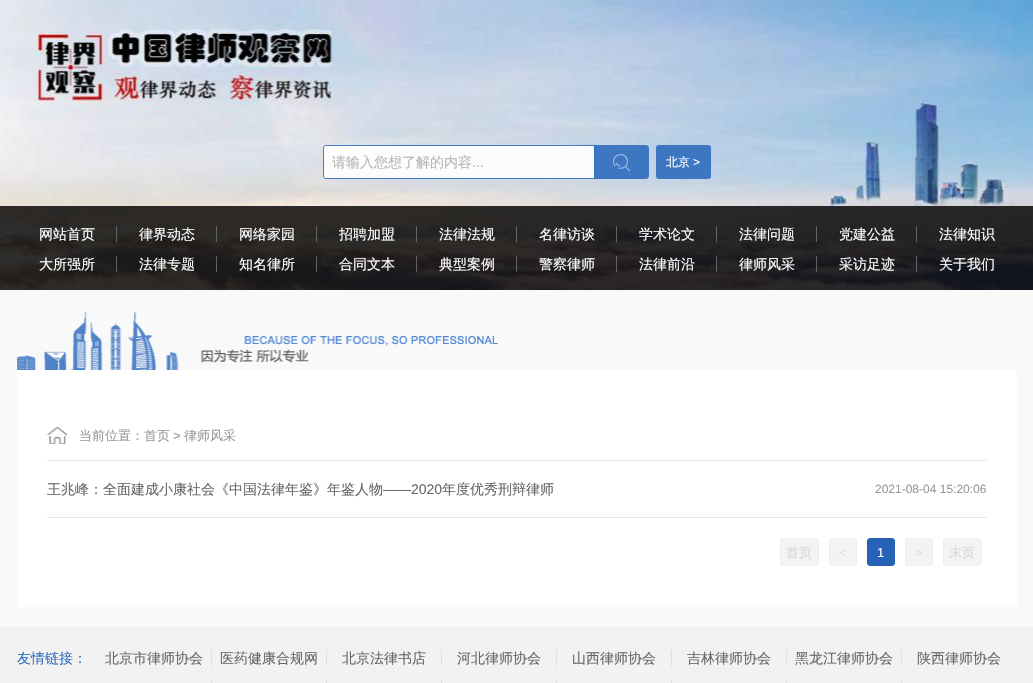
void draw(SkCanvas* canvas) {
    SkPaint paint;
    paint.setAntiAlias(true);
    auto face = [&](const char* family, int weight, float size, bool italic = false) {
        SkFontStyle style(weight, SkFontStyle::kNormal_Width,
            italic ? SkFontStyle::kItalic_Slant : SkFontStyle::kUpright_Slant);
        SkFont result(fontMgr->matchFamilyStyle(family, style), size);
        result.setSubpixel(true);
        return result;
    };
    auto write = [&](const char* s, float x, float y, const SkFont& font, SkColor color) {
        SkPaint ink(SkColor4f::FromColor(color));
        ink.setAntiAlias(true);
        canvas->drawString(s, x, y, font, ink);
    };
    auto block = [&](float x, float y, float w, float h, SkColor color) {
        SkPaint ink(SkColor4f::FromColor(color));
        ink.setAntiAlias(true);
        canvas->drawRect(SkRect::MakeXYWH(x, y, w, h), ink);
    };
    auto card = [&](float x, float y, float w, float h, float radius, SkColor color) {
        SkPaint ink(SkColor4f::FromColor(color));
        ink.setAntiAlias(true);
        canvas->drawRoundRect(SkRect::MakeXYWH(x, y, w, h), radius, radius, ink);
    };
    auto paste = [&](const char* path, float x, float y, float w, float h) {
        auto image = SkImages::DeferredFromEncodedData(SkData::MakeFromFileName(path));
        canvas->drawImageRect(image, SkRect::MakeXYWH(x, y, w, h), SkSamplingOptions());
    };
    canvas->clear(SkColorSetRGB(249, 249, 249));
    paste("pic1.png", 0, 0, 1033, 290);
    paint.setColor(SkColorSetARGB(230, 255, 255, 255));
    canvas->drawPath(SkPathBuilder().moveTo(326, 145).lineTo(595, 145).lineTo(595, 179).lineTo(326, 179).cubicTo(324.5f, 179, 323, 177.5f, 323, 176).lineTo(323, 148).cubicTo(323, 146.5f, 324.5f, 145, 326, 145).close().detach(), paint);
    paint.setStyle(SkPaint::kStroke_Style);
    paint.setStrokeWidth(1);
    paint.setColor(SkColorSetARGB(230, 47, 107, 189));
    canvas->drawPath(SkPathBuilder().moveTo(326, 145.5f).lineTo(594.5f, 145.5f).lineTo(594.5f, 178.5f).lineTo(326, 178.5f).cubicTo(324.5f, 178.5f, 323.5f, 177.5f, 323.5f, 176).lineTo(323.5f, 148).cubicTo(323.5f, 146.5f, 324.5f, 145.5f, 326, 145.5f).close().detach(), paint);
    auto kFont1 = face("WenQuanYi Zen Hei", 500, 14);
    write("请输入您想了解的内容", 332, 167, kFont1, SkColorSetRGB(183, 182, 181));
    auto kFont2 = face("Liberation Sans", 400, 14);
    write("...", 472, 167, kFont2, SkColorSetRGB(183, 182, 181));
    paint.setStyle(SkPaint::kFill_Style);
    canvas->drawPath(SkPathBuilder().moveTo(594, 145).lineTo(646, 145).cubicTo(647.5f, 145, 649, 146.5f, 649, 148).lineTo(649, 176).cubicTo(649, 177.5f, 647.5f, 179, 646, 179).lineTo(594, 179).close().detach(), paint);
    paste("pic2.png", 613, 154, 17, 17);
    card(656, 145, 55, 34, 3, SkColorSetARGB(230, 47, 107, 189));
    auto kFont3 = face("WenQuanYi Zen Hei", 500, 12);
    write("北京", 666, 166, kFont3, SK_ColorWHITE);
    auto kFont4 = face("Liberation Sans", 400, 12);
    write(">", 693, 166, kFont4, SK_ColorWHITE);
    block(0, 206, 1033, 84, SkColorSetARGB(209, 0, 0, 0));
    write("网站首页", 39, 239, kFont1, SK_ColorWHITE);
    block(116, 226, 1, 16, SkColorSetRGB(99, 99, 99));
    write("律界动态", 139, 239, kFont1, SK_ColorWHITE);
    block(216, 226, 1, 16, SkColorSetRGB(99, 99, 99));
    write("网络家园", 239, 239, kFont1, SK_ColorWHITE);
    block(316, 226, 1, 16, SkColorSetRGB(99, 99, 99));
    write("招聘加盟", 339, 239, kFont1, SK_ColorWHITE);
    block(416, 226, 1, 16, SkColorSetRGB(99, 99, 99));
    write("法律法规", 439, 239, kFont1, SK_ColorWHITE);
    block(516, 226, 1, 16, SkColorSetRGB(99, 99, 99));
    write("名律访谈", 539, 239, kFont1, SK_ColorWHITE);
    block(616, 226, 1, 16, SkColorSetRGB(99, 99, 99));
    write("学术论文", 639, 239, kFont1, SK_ColorWHITE);
    block(716, 226, 1, 16, SkColorSetRGB(99, 99, 99));
    write("法律问题", 739, 239, kFont1, SK_ColorWHITE);
    block(816, 226, 1, 16, SkColorSetRGB(99, 99, 99));
    write("党建公益", 839, 239, kFont1, SK_ColorWHITE);
    block(916, 226, 1, 16, SkColorSetRGB(99, 99, 99));
    write("法律知识", 939, 239, kFont1, SK_ColorWHITE);
    write("大所强所", 39, 269, kFont1, SK_ColorWHITE);
    block(116, 256, 1, 16, SkColorSetRGB(99, 99, 99));
    write("法律专题", 139, 269, kFont1, SK_ColorWHITE);
    block(216, 256, 1, 16, SkColorSetRGB(99, 99, 99));
    write("知名律所", 239, 269, kFont1, SK_ColorWHITE);
    block(316, 256, 1, 16, SkColorSetRGB(99, 99, 99));
    write("合同文本", 339, 269, kFont1, SK_ColorWHITE);
    block(416, 256, 1, 16, SkColorSetRGB(99, 99, 99));
    write("典型案例", 439, 269, kFont1, SK_ColorWHITE);
    block(516, 256, 1, 16, SkColorSetRGB(99, 99, 99));
    write("警察律师", 539, 269, kFont1, SK_ColorWHITE);
    block(616, 256, 1, 16, SkColorSetRGB(99, 99, 99));
    write("法律前沿", 639, 269, kFont1, SK_ColorWHITE);
    block(716, 256, 1, 16, SkColorSetRGB(99, 99, 99));
    write("律师风采", 739, 269, kFont1, SK_ColorWHITE);
    block(816, 256, 1, 16, SkColorSetRGB(99, 99, 99));
    write("采访足迹", 839, 269, kFont1, SK_ColorWHITE);
    block(916, 256, 1, 16, SkColorSetRGB(99, 99, 99));
    write("关于我们", 939, 269, kFont1, SK_ColorWHITE);
    paste("pic3.png", 17, 311, 481, 59);
    block(17, 370, 1000, 237, SK_ColorWHITE);
    paste("pic4.png", 47, 427, 20, 17);
    block(47, 460, 940, 1, SkColorSetRGB(230, 230, 230));
    auto kFont5 = face("WenQuanYi Zen Hei", 500, 13);
    write("当前位置：首页", 79, 440, kFont5, SkColorSetRGB(153, 153, 153));
    auto kFont6 = face("Liberation Sans", 400, 13);
    write(">", 173, 440, kFont6, SkColorSetRGB(153, 153, 153));
    write("律师风采", 184, 440, kFont5, SkColorSetRGB(153, 153, 153));
    write("王兆峰：全面建成小康社会《中国法律年鉴》年鉴人物", 47, 494, kFont1, SkColorSetRGB(102, 102, 102));
    write("——2020", 383, 494, kFont2, SkColorSetRGB(102, 102, 102));
    write("年度优秀刑辩律师", 442, 494, kFont1, SkColorSetRGB(102, 102, 102));
    write("2021-08-04 15:20:06", 875, 493, kFont4, SkColorSetRGB(153, 153, 153));
    block(47, 517, 940, 1, SkColorSetRGB(230, 230, 230));
    paint.setColor(SkColorSetRGB(243, 243, 243));
    canvas->drawRoundRect(SkRect::MakeXYWH(780.5f, 538.5f, 38, 27), 2.5f, 2.5f, paint);
    paint.setStyle(SkPaint::kStroke_Style);
    paint.setColor(SkColorSetRGB(238, 238, 238));
    canvas->drawRoundRect(SkRect::MakeXYWH(780.5f, 538.5f, 38, 27), 2.5f, 2.5f, paint);
    write("首页", 786, 557, kFont5, SkColorSetRGB(216, 216, 216));
    paint.setStyle(SkPaint::kFill_Style);
    paint.setColor(SkColorSetRGB(243, 243, 243));
    canvas->drawRoundRect(SkRect::MakeXYWH(829.5f, 538.5f, 27, 27), 2.5f, 2.5f, paint);
    paint.setStyle(SkPaint::kStroke_Style);
    paint.setColor(SkColorSetRGB(238, 238, 238));
    canvas->drawRoundRect(SkRect::MakeXYWH(829.5f, 538.5f, 27, 27), 2.5f, 2.5f, paint);
    auto kFont7 = face("Liberation Serif", 400, 13);
    write("<", 839, 557, kFont7, SkColorSetRGB(216, 216, 216));
    paint.setStyle(SkPaint::kFill_Style);
    paint.setColor(SkColorSetRGB(38, 98, 181));
    canvas->drawRoundRect(SkRect::MakeXYWH(867.5f, 538.5f, 27, 27), 2.5f, 2.5f, paint);
    paint.setStyle(SkPaint::kStroke_Style);
    canvas->drawRoundRect(SkRect::MakeXYWH(867.5f, 538.5f, 27, 27), 2.5f, 2.5f, paint);
    write("1", 877, 557, kFont6, SK_ColorWHITE);
    paint.setStyle(SkPaint::kFill_Style);
    paint.setColor(SkColorSetRGB(243, 243, 243));
    canvas->drawRoundRect(SkRect::MakeXYWH(905.5f, 538.5f, 27, 27), 2.5f, 2.5f, paint);
    paint.setStyle(SkPaint::kStroke_Style);
    paint.setColor(SkColorSetRGB(238, 238, 238));
    canvas->drawRoundRect(SkRect::MakeXYWH(905.5f, 538.5f, 27, 27), 2.5f, 2.5f, paint);
    write(">", 915, 557, kFont7, SkColorSetRGB(216, 216, 216));
    paint.setStyle(SkPaint::kFill_Style);
    paint.setColor(SkColorSetRGB(243, 243, 243));
    canvas->drawRoundRect(SkRect::MakeXYWH(943.5f, 538.5f, 38, 27), 2.5f, 2.5f, paint);
    paint.setStyle(SkPaint::kStroke_Style);
    paint.setColor(SkColorSetRGB(238, 238, 238));
    canvas->drawRoundRect(SkRect::MakeXYWH(943.5f, 538.5f, 38, 27), 2.5f, 2.5f, paint);
    write("末页", 949, 557, kFont5, SkColorSetRGB(216, 216, 216));
    block(0, 627, 1033, 56, SkColorSetRGB(242, 242, 242));
    write("友情链接：", 17, 663, kFont1, SkColorSetRGB(47, 107, 189));
    write("北京市律师协会", 105, 663, kFont1, SkColorSetRGB(102, 102, 102));
    block(211, 650, 1, 16, SkColorSetRGB(223, 223, 223));
    write("医药健康合规网", 220, 663, kFont1, SkColorSetRGB(102, 102, 102));
    block(326, 650, 1, 16, SkColorSetRGB(223, 223, 223));
    write("北京法律书店", 342, 663, kFont1, SkColorSetRGB(102, 102, 102));
    block(441, 650, 1, 16, SkColorSetRGB(223, 223, 223));
    write("河北律师协会", 457, 663, kFont1, SkColorSetRGB(102, 102, 102));
    block(556, 650, 1, 16, SkColorSetRGB(223, 223, 223));
    write("山西律师协会", 572, 663, kFont1, SkColorSetRGB(102, 102, 102));
    block(671, 650, 1, 16, SkColorSetRGB(223, 223, 223));
    write("吉林律师协会", 687, 663, kFont1, SkColorSetRGB(102, 102, 102));
    block(786, 650, 1, 16, SkColorSetRGB(223, 223, 223));
    write("黑龙江律师协会", 795, 663, kFont1, SkColorSetRGB(102, 102, 102));
    block(901, 650, 1, 16, SkColorSetRGB(223, 223, 223));
    write("陕西律师协会", 917, 663, kFont1, SkColorSetRGB(102, 102, 102));
    block(211, 680, 1, 3, SkColorSetRGB(223, 223, 223));
    block(326, 680, 1, 3, SkColorSetRGB(223, 223, 223));
    block(441, 680, 1, 3, SkColorSetRGB(223, 223, 223));
    block(556, 680, 1, 3, SkColorSetRGB(223, 223, 223));
    block(671, 680, 1, 3, SkColorSetRGB(223, 223, 223));
    block(786, 680, 1, 3, SkColorSetRGB(223, 223, 223));
    block(901, 680, 1, 3, SkColorSetRGB(223, 223, 223));
}
